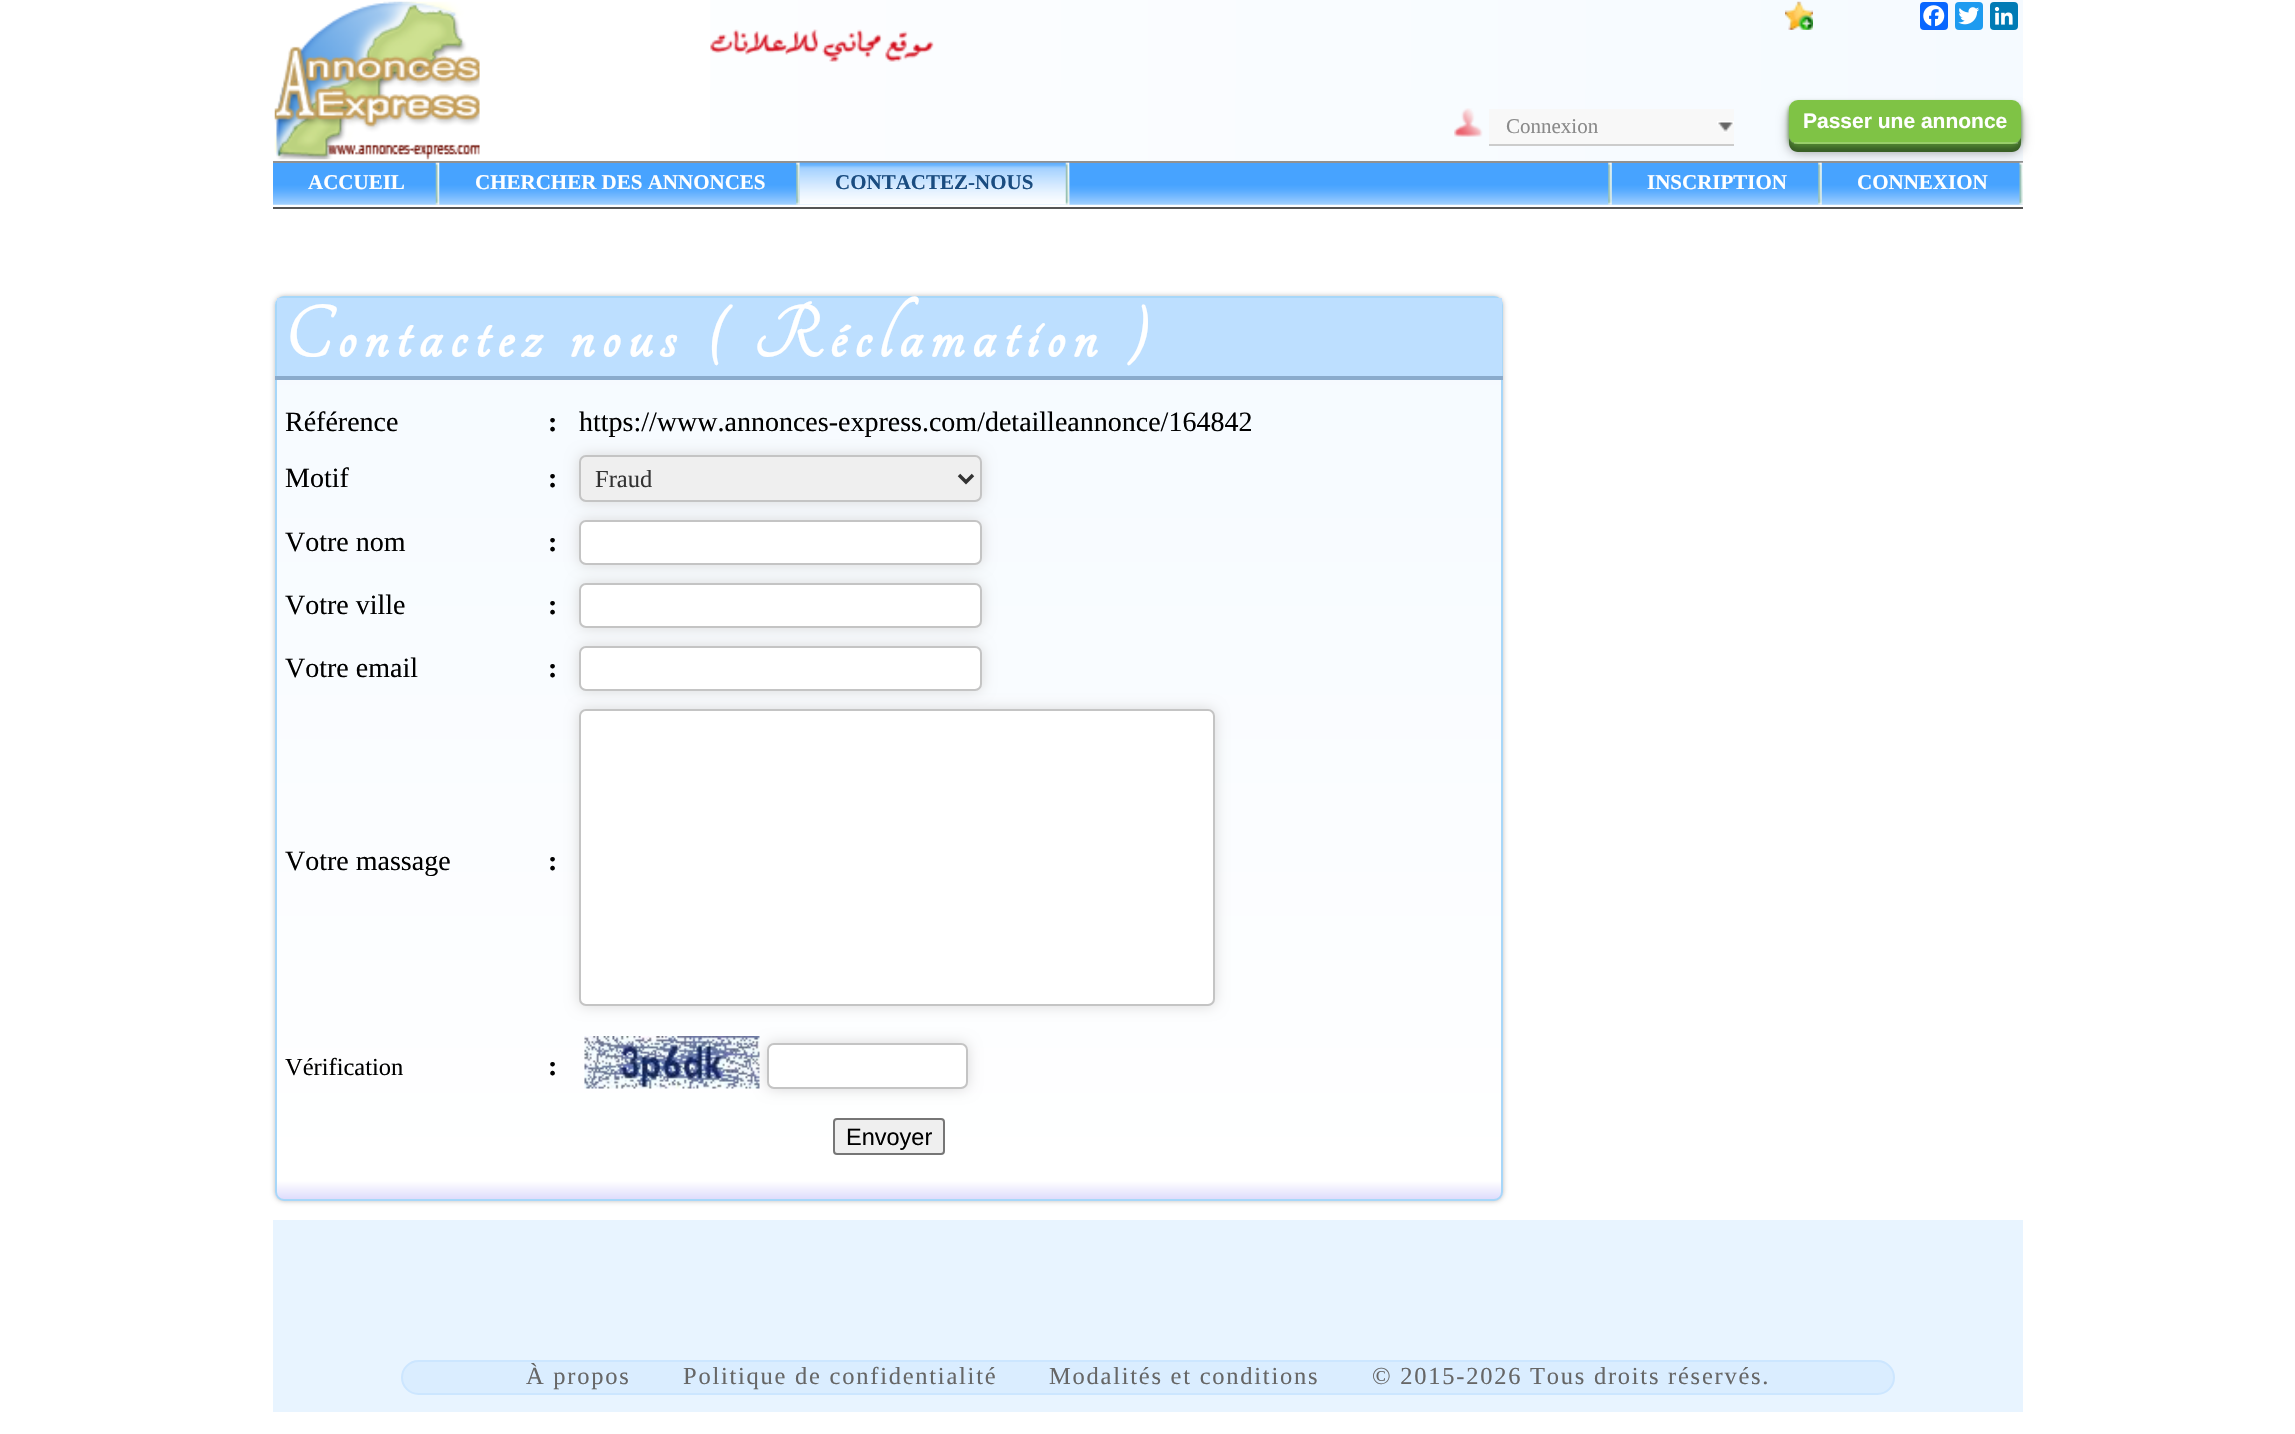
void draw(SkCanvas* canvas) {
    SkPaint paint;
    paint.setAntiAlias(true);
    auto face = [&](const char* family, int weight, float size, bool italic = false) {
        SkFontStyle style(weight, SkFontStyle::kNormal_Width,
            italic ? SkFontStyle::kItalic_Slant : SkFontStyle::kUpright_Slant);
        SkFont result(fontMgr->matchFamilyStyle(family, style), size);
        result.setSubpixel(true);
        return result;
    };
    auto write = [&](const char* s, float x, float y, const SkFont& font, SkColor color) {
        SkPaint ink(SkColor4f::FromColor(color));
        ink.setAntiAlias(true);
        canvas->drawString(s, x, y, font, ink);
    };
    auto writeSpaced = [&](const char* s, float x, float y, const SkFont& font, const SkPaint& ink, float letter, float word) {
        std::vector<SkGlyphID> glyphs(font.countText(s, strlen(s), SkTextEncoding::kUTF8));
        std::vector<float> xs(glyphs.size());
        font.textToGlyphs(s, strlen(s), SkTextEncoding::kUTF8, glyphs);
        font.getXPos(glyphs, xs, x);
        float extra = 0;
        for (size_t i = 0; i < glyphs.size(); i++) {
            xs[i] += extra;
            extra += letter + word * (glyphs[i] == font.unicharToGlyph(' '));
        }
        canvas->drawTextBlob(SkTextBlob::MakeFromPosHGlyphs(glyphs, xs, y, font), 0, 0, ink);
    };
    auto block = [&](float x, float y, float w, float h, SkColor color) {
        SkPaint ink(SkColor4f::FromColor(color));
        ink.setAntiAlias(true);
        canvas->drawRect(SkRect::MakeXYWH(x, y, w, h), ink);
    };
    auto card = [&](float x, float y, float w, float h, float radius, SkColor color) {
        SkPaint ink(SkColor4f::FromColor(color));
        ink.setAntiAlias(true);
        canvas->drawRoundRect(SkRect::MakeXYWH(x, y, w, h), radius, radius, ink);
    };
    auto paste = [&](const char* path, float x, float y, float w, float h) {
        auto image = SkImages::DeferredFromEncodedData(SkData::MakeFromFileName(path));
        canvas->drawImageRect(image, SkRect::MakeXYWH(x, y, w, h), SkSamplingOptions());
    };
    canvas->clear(SK_ColorWHITE);
    {
        const SkColor colors[] = {SkColorSetRGB(245, 250, 255), SK_ColorWHITE};
        const float stops[] = {0, 1};
        const SkPoint ends[] = {{2023, 81}, {273, 80}};
        paint.setShader(SkGradientShader::MakeLinear(ends, colors, stops, 2, SkTileMode::kClamp));
        paint.setAlpha(255);
    }
    canvas->drawRect(SkRect::MakeXYWH(710, 0, 1313, 161), paint);
    paste("pic1.png", 274, 1, 206, 159);
    paste("pic2.png", 1785, 1, 28, 29);
    card(1920, 2, 28, 28, 4, SkColorSetRGB(8, 102, 255));
    paste("pic3.png", 1923, 5, 22, 22);
    card(1955, 2, 28, 28, 4, SkColorSetRGB(29, 155, 240));
    paste("pic4.png", 1958, 7, 22, 18);
    card(1990, 2, 28, 28, 4, SkColorSetRGB(0, 123, 181));
    paste("pic5.png", 1994, 7, 19, 18);
    paste("pic6.png", 710, 29, 224, 33);
    paste("pic7.png", 1454, 108, 29, 29);
    block(1489, 109, 245, 35, SkColorSetRGB(248, 248, 248));
    paste("pic8.png", 1717, 121, 17, 12);
    block(1489, 144, 245, 2, SkColorSetRGB(204, 204, 204));
    auto kFont1 = face("Liberation Serif", 400, 21);
    write("Connexion", 1506, 133, kFont1, SkColorSetRGB(138, 138, 138));
    paint.setShader(nullptr);
    paint.setColor(SkColorSetARGB(102, 0, 0, 0));
    paint.setMaskFilter(SkMaskFilter::MakeBlur(kNormal_SkBlurStyle, 6));
    canvas->drawRoundRect(SkRect::MakeXYWH(1789, 109, 232, 43), 9, 9, paint);
    paint.setMaskFilter(nullptr);
    paint.setColor(SkColorSetRGB(56, 94, 37));
    canvas->drawPath(SkPathBuilder().moveTo(1789, 138).lineTo(1789, 143).cubicTo(1789, 148, 1793, 152, 1798, 152).lineTo(2012, 152).cubicTo(2017, 152, 2021, 148, 2021, 143).lineTo(2021, 137).cubicTo(2020, 141, 2017, 144, 2012, 144).lineTo(1797, 144).cubicTo(1793, 144, 1790, 141, 1789, 138).close().detach(), paint);
    paint.setColor(SkColorSetRGB(80, 133, 48));
    paint.setMaskFilter(SkMaskFilter::MakeBlur(kNormal_SkBlurStyle, 2));
    canvas->drawRoundRect(SkRect::MakeXYWH(1789, 103, 232, 44), 9, 9, paint);
    paint.setMaskFilter(nullptr);
    card(1789, 100, 232, 44, 9, SkColorSetRGB(127, 195, 69));
    block(1794, 142, 224, 2, SkColorSetARGB(51, 255, 255, 255));
    auto kFont2 = face("Liberation Sans", 700, 21);
    write("Passer une annonce", 1803, 128, kFont2, SK_ColorWHITE);
    paste("pic9.png", 273, 163, 1750, 42);
    block(273, 161, 1750, 2, SkColorSetRGB(145, 145, 145));
    block(273, 207, 1750, 2, SkColorSetRGB(85, 85, 85));
    paste("pic10.png", 435, 162, 5, 43);
    auto kFont3 = face("Liberation Serif", 700, 21);
    write("ACCUEIL", 308, 189, kFont3, SK_ColorWHITE);
    paste("pic11.png", 796, 162, 4, 43);
    write("CHERCHER DES ANNONCES", 475, 189, kFont3, SK_ColorWHITE);
    paste("pic12.png", 799, 162, 271, 43);
    paste("pic13.png", 1065, 162, 5, 43);
    write("CONTACTEZ-NOUS", 835, 189, kFont3, SkColorSetRGB(26, 76, 128));
    paste("pic11.png", 1608, 162, 4, 43);
    paste("pic11.png", 1818, 162, 4, 43);
    write("INSCRIPTION", 1647, 189, kFont3, SK_ColorWHITE);
    paste("pic14.png", 2019, 162, 4, 43);
    write("CONNEXION", 1857, 189, kFont3, SK_ColorWHITE);
    paint.setColor(SkColorSetRGB(189, 189, 189));
    paint.setMaskFilter(SkMaskFilter::MakeBlur(kNormal_SkBlurStyle, 2.5f));
    canvas->drawRoundRect(SkRect::MakeXYWH(275, 296, 1228, 905), 9, 9, paint);
    paint.setMaskFilter(nullptr);
    canvas->save();
    canvas->clipPath(SkPathBuilder().moveTo(284, 296).lineTo(1494, 296).cubicTo(1499, 296, 1503, 300, 1503, 305).lineTo(1503, 1192).cubicTo(1503, 1197, 1499, 1201, 1494, 1201).lineTo(284, 1201).cubicTo(279, 1201, 275, 1197, 275, 1192).lineTo(275, 305).cubicTo(275, 300, 279, 296, 284, 296).close().detach(), true);
    {
        const SkColor colors[] = {SkColorSetRGB(245, 250, 255), SK_ColorWHITE, SkColorSetRGB(222, 220, 252)};
        const float stops[] = {0, 0.98f, 1};
        const SkPoint ends[] = {{889, 297}, {889, 1199}};
        paint.setShader(SkGradientShader::MakeLinear(ends, colors, stops, 3, SkTileMode::kClamp));
        paint.setAlpha(255);
    }
    canvas->drawRect(SkRect::MakeXYWH(275, 299, 1228, 900), paint);
    canvas->restore();
    paint.setStyle(SkPaint::kStroke_Style);
    paint.setStrokeWidth(2);
    paint.setShader(nullptr);
    paint.setColor(SkColorSetRGB(167, 215, 249));
    canvas->drawRoundRect(SkRect::MakeXYWH(276, 297, 1226, 903), 8, 8, paint);
    block(277, 298, 1225, 78, SkColorSetRGB(189, 223, 255));
    block(275, 376, 1228, 4, SkColorSetRGB(138, 171, 204));
    auto kFont4 = face("Tangerine", 700, 78.75f);
    paint.setStyle(SkPaint::kFill_Style);
    paint.setColor(SK_ColorWHITE);
    writeSpaced("Contactez nous ( Réclamation )", 285, 357, kFont4, paint, 8.75f, 0);
    auto kFont5 = face("Liberation Serif", 400, 28);
    write("Référence", 285, 431, kFont5, SK_ColorBLACK);
    auto kFont6 = face("Liberation Serif", 700, 28);
    write(":", 548, 431, kFont6, SK_ColorBLACK);
    write("https://www.annonces-express.com/detailleannonce/164842", 579, 431, kFont5, SK_ColorBLACK);
    write("Motif", 285, 487, kFont5, SK_ColorBLACK);
    write(":", 548, 487, kFont6, SK_ColorBLACK);
    paint.setColor(SkColorSetRGB(217, 217, 217));
    paint.setMaskFilter(SkMaskFilter::MakeBlur(kNormal_SkBlurStyle, 7));
    canvas->drawRoundRect(SkRect::MakeXYWH(579, 455, 403, 47), 7, 7, paint);
    paint.setMaskFilter(nullptr);
    paint.setColor(SkColorSetRGB(239, 239, 239));
    canvas->drawRoundRect(SkRect::MakeXYWH(580, 456, 401, 45), 6, 6, paint);
    paint.setStyle(SkPaint::kStroke_Style);
    paint.setColor(SkColorSetRGB(196, 196, 196));
    canvas->drawRoundRect(SkRect::MakeXYWH(580, 456, 401, 45), 6, 6, paint);
    paint.setStrokeWidth(3.5f);
    paint.setColor(SkColorSetRGB(51, 51, 51));
    canvas->drawPath(SkPathBuilder().moveTo(959, 475).lineTo(966, 482).lineTo(973, 475).detach(), paint);
    auto kFont7 = face("Liberation Serif", 400, 24.5f);
    write("Fraud", 595, 487, kFont7, SkColorSetRGB(51, 51, 51));
    write("Votre nom", 285, 551, kFont5, SK_ColorBLACK);
    write(":", 548, 551, kFont6, SK_ColorBLACK);
    paint.setStyle(SkPaint::kFill_Style);
    paint.setColor(SkColorSetRGB(217, 217, 217));
    paint.setMaskFilter(SkMaskFilter::MakeBlur(kNormal_SkBlurStyle, 7));
    canvas->drawRoundRect(SkRect::MakeXYWH(579, 520, 403, 45), 7, 7, paint);
    paint.setMaskFilter(nullptr);
    paint.setColor(SK_ColorWHITE);
    canvas->drawRoundRect(SkRect::MakeXYWH(580, 521, 401, 43), 6, 6, paint);
    paint.setStyle(SkPaint::kStroke_Style);
    paint.setStrokeWidth(2);
    paint.setColor(SkColorSetRGB(196, 196, 196));
    canvas->drawRoundRect(SkRect::MakeXYWH(580, 521, 401, 43), 6, 6, paint);
    write("Votre ville", 285, 614, kFont5, SK_ColorBLACK);
    write(":", 548, 614, kFont6, SK_ColorBLACK);
    paint.setStyle(SkPaint::kFill_Style);
    paint.setColor(SkColorSetRGB(217, 217, 217));
    paint.setMaskFilter(SkMaskFilter::MakeBlur(kNormal_SkBlurStyle, 7));
    canvas->drawRoundRect(SkRect::MakeXYWH(579, 583, 403, 45), 7, 7, paint);
    paint.setMaskFilter(nullptr);
    paint.setColor(SK_ColorWHITE);
    canvas->drawRoundRect(SkRect::MakeXYWH(580, 584, 401, 43), 6, 6, paint);
    paint.setStyle(SkPaint::kStroke_Style);
    paint.setColor(SkColorSetRGB(196, 196, 196));
    canvas->drawRoundRect(SkRect::MakeXYWH(580, 584, 401, 43), 6, 6, paint);
    write("Votre email", 285, 677, kFont5, SK_ColorBLACK);
    write(":", 548, 677, kFont6, SK_ColorBLACK);
    paint.setStyle(SkPaint::kFill_Style);
    paint.setColor(SkColorSetRGB(217, 217, 217));
    paint.setMaskFilter(SkMaskFilter::MakeBlur(kNormal_SkBlurStyle, 7));
    canvas->drawRoundRect(SkRect::MakeXYWH(579, 646, 403, 45), 7, 7, paint);
    paint.setMaskFilter(nullptr);
    paint.setColor(SK_ColorWHITE);
    canvas->drawRoundRect(SkRect::MakeXYWH(580, 647, 401, 43), 6, 6, paint);
    paint.setStyle(SkPaint::kStroke_Style);
    paint.setColor(SkColorSetRGB(196, 196, 196));
    canvas->drawRoundRect(SkRect::MakeXYWH(580, 647, 401, 43), 6, 6, paint);
    write("Votre massage", 285, 870, kFont5, SK_ColorBLACK);
    write(":", 548, 870, kFont6, SK_ColorBLACK);
    paint.setStyle(SkPaint::kFill_Style);
    paint.setColor(SkColorSetRGB(217, 217, 217));
    paint.setMaskFilter(SkMaskFilter::MakeBlur(kNormal_SkBlurStyle, 7));
    canvas->drawRoundRect(SkRect::MakeXYWH(579, 709, 636, 297), 7, 7, paint);
    paint.setMaskFilter(nullptr);
    paint.setColor(SK_ColorWHITE);
    canvas->drawRoundRect(SkRect::MakeXYWH(580, 710, 634, 295), 6, 6, paint);
    paint.setStyle(SkPaint::kStroke_Style);
    paint.setColor(SkColorSetRGB(196, 196, 196));
    canvas->drawRoundRect(SkRect::MakeXYWH(580, 710, 634, 295), 6, 6, paint);
    write("Vérification", 285, 1075, kFont7, SK_ColorBLACK);
    write(":", 548, 1075, kFont6, SK_ColorBLACK);
    paste("pic15.png", 584, 1036, 176, 53);
    paint.setStyle(SkPaint::kFill_Style);
    paint.setColor(SkColorSetRGB(217, 217, 217));
    paint.setMaskFilter(SkMaskFilter::MakeBlur(kNormal_SkBlurStyle, 7));
    canvas->drawRoundRect(SkRect::MakeXYWH(767, 1043, 201, 46), 7, 7, paint);
    paint.setMaskFilter(nullptr);
    paint.setColor(SK_ColorWHITE);
    canvas->drawRoundRect(SkRect::MakeXYWH(768, 1044, 199, 44), 6, 6, paint);
    paint.setStyle(SkPaint::kStroke_Style);
    paint.setColor(SkColorSetRGB(196, 196, 196));
    canvas->drawRoundRect(SkRect::MakeXYWH(768, 1044, 199, 44), 6, 6, paint);
    paint.setStyle(SkPaint::kFill_Style);
    paint.setColor(SkColorSetRGB(239, 239, 239));
    canvas->drawRoundRect(SkRect::MakeXYWH(834, 1119, 110, 35), 3, 3, paint);
    paint.setStyle(SkPaint::kStroke_Style);
    paint.setColor(SkColorSetRGB(118, 118, 118));
    canvas->drawRoundRect(SkRect::MakeXYWH(834, 1119, 110, 35), 3, 3, paint);
    auto kFont8 = face("Liberation Sans", 400, 23.5f);
    write("Envoyer", 846, 1145, kFont8, SK_ColorBLACK);
    block(273, 1220, 1750, 192, SkColorSetRGB(232, 244, 255));
    paint.setStyle(SkPaint::kFill_Style);
    paint.setColor(SkColorSetRGB(218, 237, 255));
    canvas->drawRoundRect(SkRect::MakeXYWH(402, 1361, 1492, 33), 16.5f, 16.5f, paint);
    paint.setStyle(SkPaint::kStroke_Style);
    paint.setColor(SkColorSetRGB(204, 230, 255));
    canvas->drawRoundRect(SkRect::MakeXYWH(402, 1361, 1492, 33), 16.5f, 16.5f, paint);
    paint.setStyle(SkPaint::kFill_Style);
    paint.setColor(SkColorSetRGB(102, 102, 102));
    writeSpaced("À propos", 526, 1384, kFont7, paint, 1.75f, 0);
    writeSpaced("Politique de confidentialité", 683, 1384, kFont7, paint, 1.75f, 0);
    writeSpaced("Modalités et conditions", 1049, 1384, kFont7, paint, 1.75f, 0);
    writeSpaced("© 2015-2026 Tous droits réservés.", 1372, 1384, kFont7, paint, 1.75f, 0);
}
